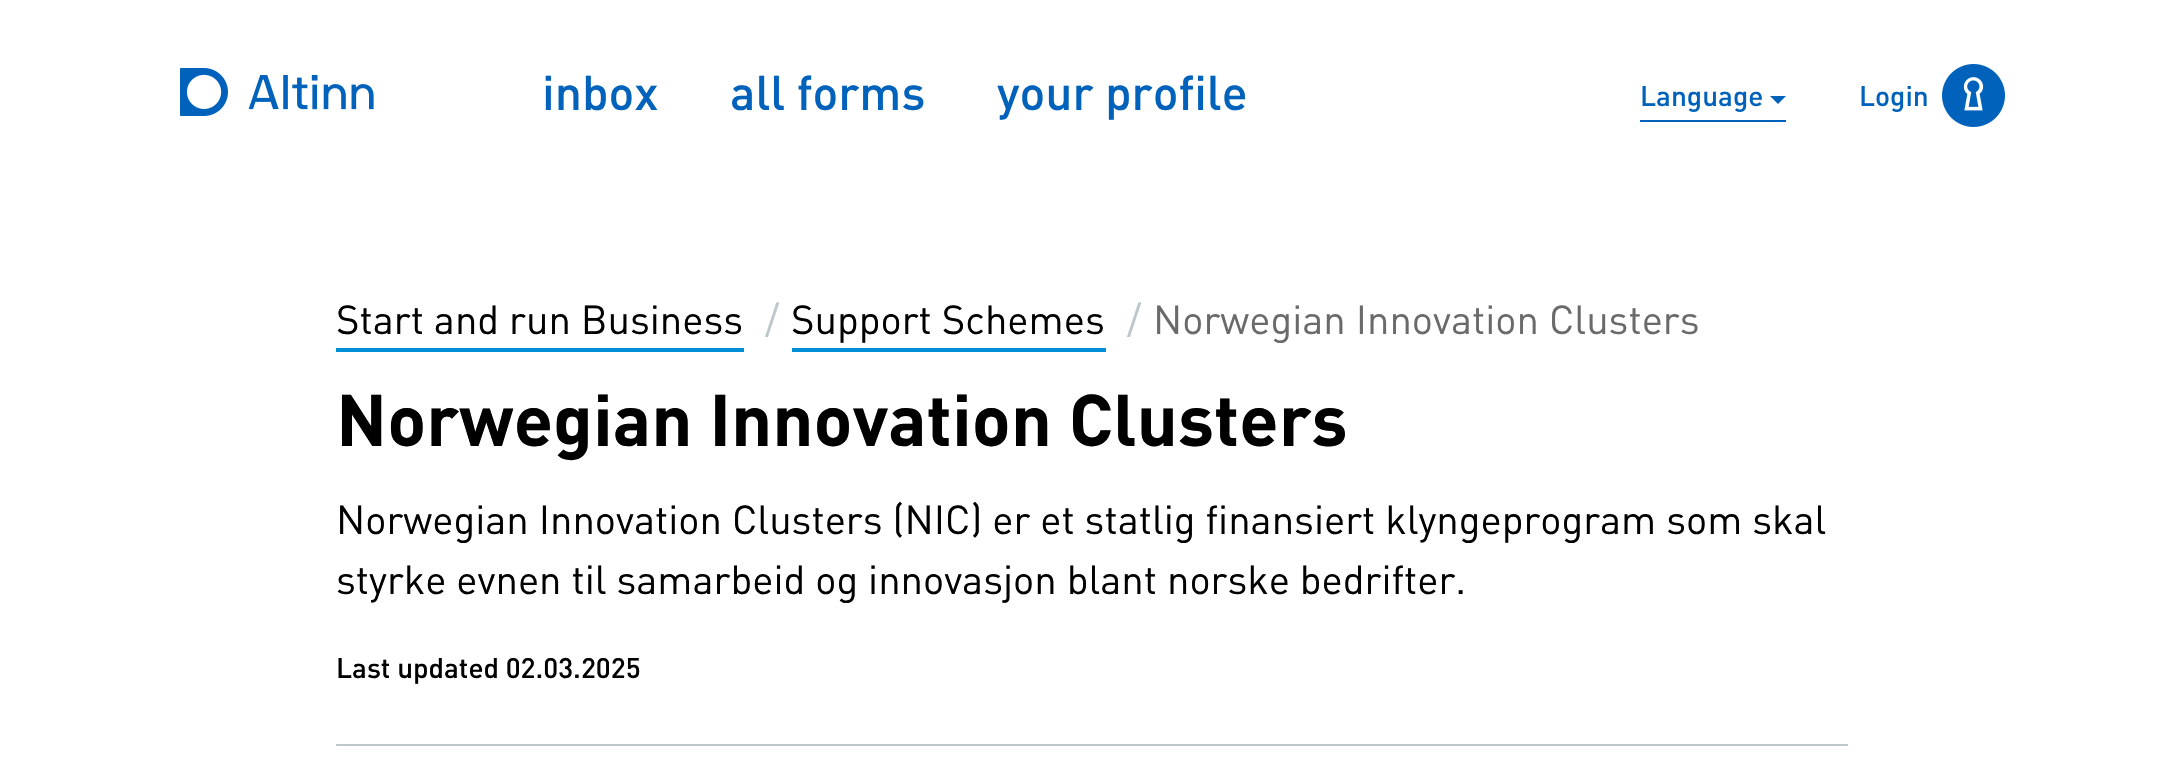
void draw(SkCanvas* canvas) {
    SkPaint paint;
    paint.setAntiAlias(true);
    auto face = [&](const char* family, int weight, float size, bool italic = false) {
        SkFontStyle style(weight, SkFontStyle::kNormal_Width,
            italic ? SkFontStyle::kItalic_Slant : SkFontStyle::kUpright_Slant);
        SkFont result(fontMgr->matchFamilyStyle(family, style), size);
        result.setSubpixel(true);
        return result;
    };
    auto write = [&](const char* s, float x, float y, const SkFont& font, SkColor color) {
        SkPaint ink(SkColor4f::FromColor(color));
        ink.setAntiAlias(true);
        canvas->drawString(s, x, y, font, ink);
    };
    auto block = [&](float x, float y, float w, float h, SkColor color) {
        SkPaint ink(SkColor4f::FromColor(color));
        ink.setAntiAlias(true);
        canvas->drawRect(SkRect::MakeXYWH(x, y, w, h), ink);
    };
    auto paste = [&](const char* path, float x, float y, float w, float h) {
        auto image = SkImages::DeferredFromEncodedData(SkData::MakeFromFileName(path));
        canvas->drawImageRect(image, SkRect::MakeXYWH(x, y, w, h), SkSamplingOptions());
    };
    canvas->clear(SK_ColorWHITE);
    paste("pic1.png", 180, 68, 194, 48);
    auto kFont1 = face("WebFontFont", 500, 48);
    write("inbox", 542, 110, kFont1, SkColorSetRGB(0, 98, 186));
    write("all forms", 730, 110, kFont1, SkColorSetRGB(0, 98, 186));
    write("your profile", 997, 110, kFont1, SkColorSetRGB(0, 98, 186));
    block(1640, 120, 146, 2, SkColorSetRGB(0, 98, 186));
    auto kFont2 = face("WebFontFont", 500, 28);
    write("Language", 1640, 106, kFont2, SkColorSetRGB(0, 98, 186));
    paint.setColor(SkColorSetRGB(0, 98, 186));
    canvas->drawPath(SkPathBuilder().moveTo(1770, 96).lineTo(1786, 96).lineTo(1778, 104).close().detach(), paint);
    write("Login", 1859, 106, kFont2, SkColorSetRGB(0, 98, 186));
    paste("pic2.png", 1942, 64, 63, 63);
    auto kFont3 = face("WebFontFont", 400, 40);
    write("Start and run Business", 336, 334, kFont3, SK_ColorBLACK);
    block(336, 348, 408, 4, SkColorSetRGB(0, 143, 214));
    write("/", 765, 334, kFont3, SkColorSetRGB(188, 199, 204));
    write("Support Schemes", 791, 334, kFont3, SK_ColorBLACK);
    block(792, 348, 314, 4, SkColorSetRGB(0, 143, 214));
    write("/", 1127, 334, kFont3, SkColorSetRGB(188, 199, 204));
    write("Norwegian Innovation Clusters", 1153, 334, kFont3, SkColorSetRGB(106, 106, 106));
    auto kFont4 = face("WebFontFont", 700, 72);
    write("Norwegian Innovation Clusters", 336, 446, kFont4, SK_ColorBLACK);
    write("Norwegian Innovation Clusters (NIC) er et statlig finansiert klyngeprogram som skal", 336, 534, kFont3, SK_ColorBLACK);
    write("styrke evnen til samarbeid og innovasjon blant norske bedrifter.", 336, 594, kFont3, SK_ColorBLACK);
    write("Last updated 02.03.2025", 336, 678, kFont2, SK_ColorBLACK);
    block(336, 744, 1512, 2, SkColorSetRGB(188, 199, 204));
}
